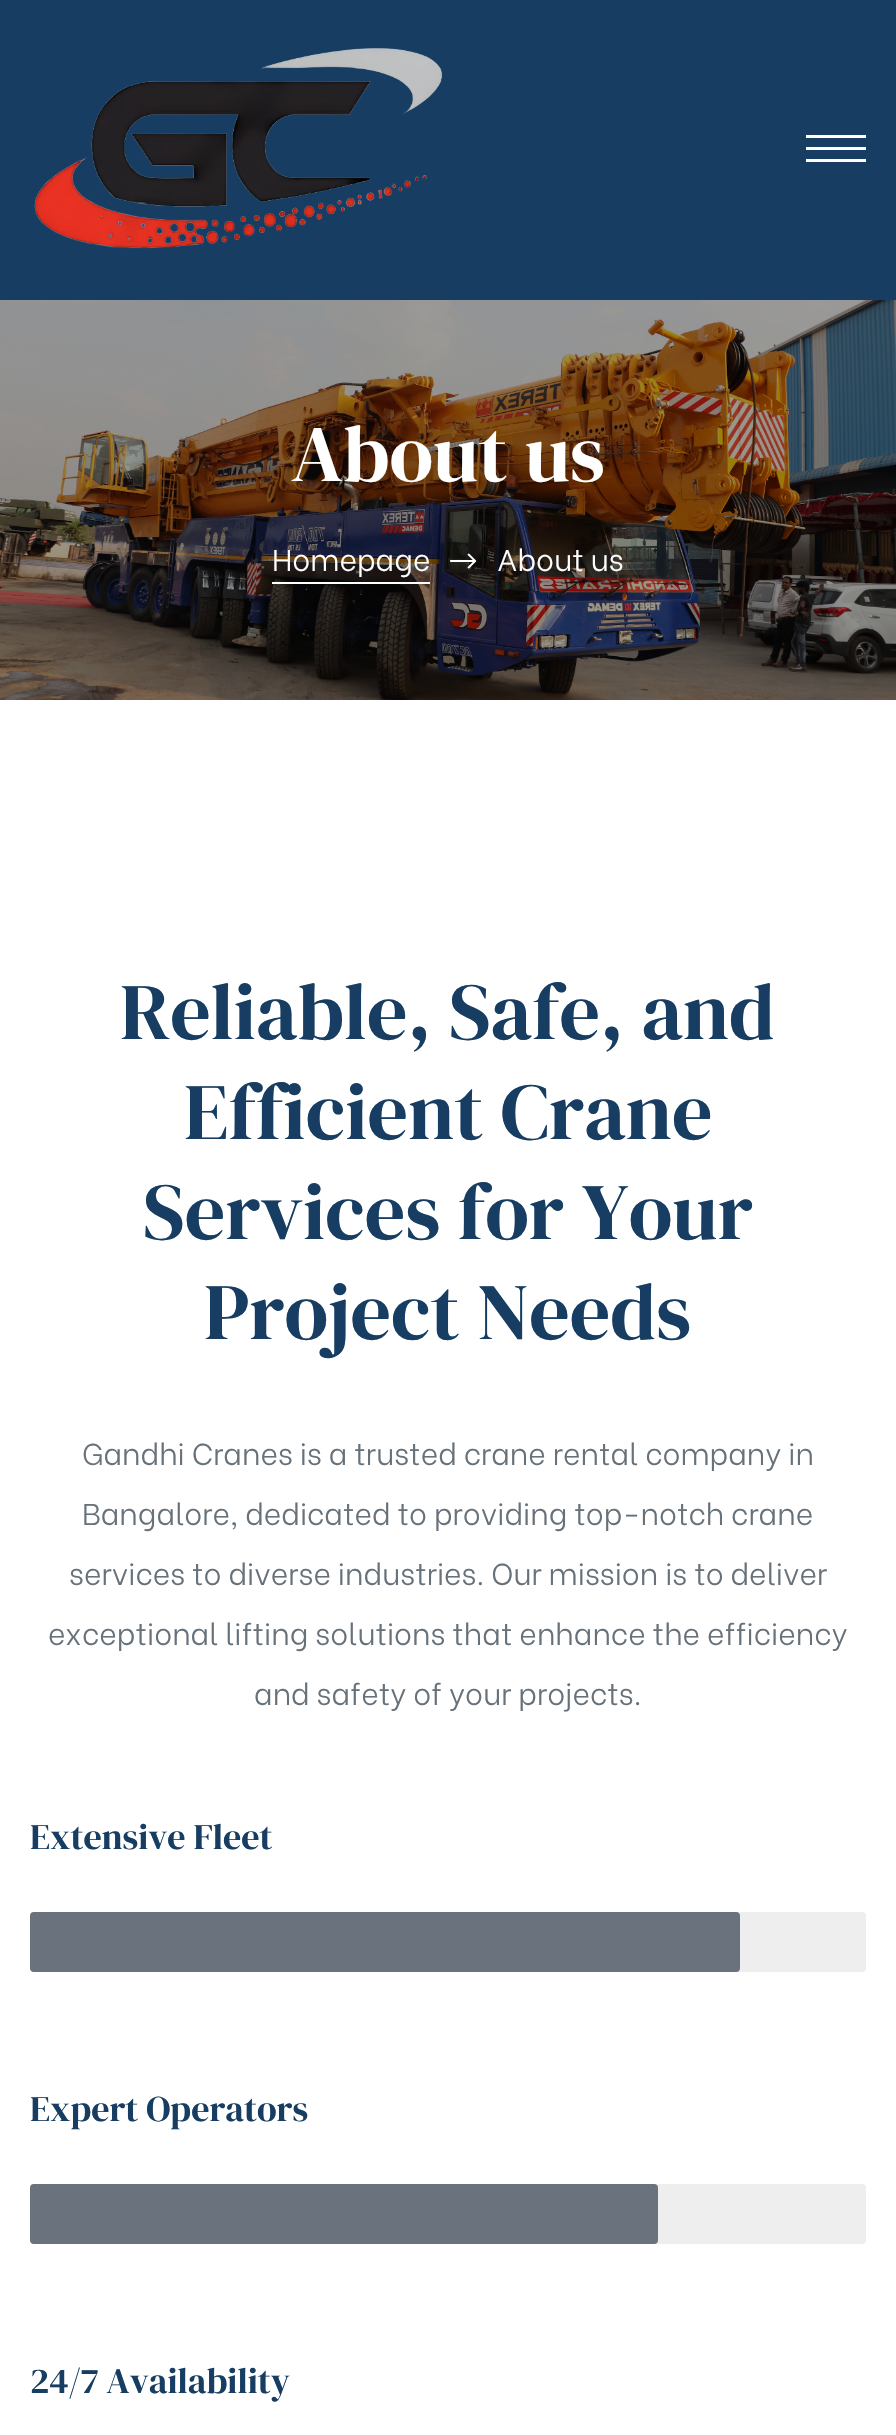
void draw(SkCanvas* canvas) {
    SkPaint paint;
    paint.setAntiAlias(true);
    auto face = [&](const char* family, int weight, float size, bool italic = false) {
        SkFontStyle style(weight, SkFontStyle::kNormal_Width,
            italic ? SkFontStyle::kItalic_Slant : SkFontStyle::kUpright_Slant);
        SkFont result(fontMgr->matchFamilyStyle(family, style), size);
        result.setSubpixel(true);
        return result;
    };
    auto write = [&](const char* s, float x, float y, const SkFont& font, SkColor color) {
        SkPaint ink(SkColor4f::FromColor(color));
        ink.setAntiAlias(true);
        canvas->drawString(s, x, y, font, ink);
    };
    auto block = [&](float x, float y, float w, float h, SkColor color) {
        SkPaint ink(SkColor4f::FromColor(color));
        ink.setAntiAlias(true);
        canvas->drawRect(SkRect::MakeXYWH(x, y, w, h), ink);
    };
    auto card = [&](float x, float y, float w, float h, float radius, SkColor color) {
        SkPaint ink(SkColor4f::FromColor(color));
        ink.setAntiAlias(true);
        canvas->drawRoundRect(SkRect::MakeXYWH(x, y, w, h), radius, radius, ink);
    };
    auto paste = [&](const char* path, float x, float y, float w, float h) {
        auto image = SkImages::DeferredFromEncodedData(SkData::MakeFromFileName(path));
        canvas->drawImageRect(image, SkRect::MakeXYWH(x, y, w, h), SkSamplingOptions());
    };
    canvas->clear(SK_ColorWHITE);
    block(0, 0, 896, 300, SkColorSetRGB(23, 62, 98));
    paste("pic1.png", 34, 48, 408, 201);
    paint.setColor(SK_ColorWHITE);
    canvas->drawPath(SkPathBuilder().moveTo(806, 162).lineTo(866, 162).lineTo(866, 159).lineTo(806, 159).close().moveTo(806, 150).lineTo(866, 150).lineTo(866, 147).lineTo(806, 147).close().moveTo(806, 135).lineTo(806, 138).lineTo(866, 138).lineTo(866, 135).close().detach(), paint);
    paste("pic2.png", 0, 300, 896, 400);
    auto kFont1 = face("DM Serif Display", 400, 80);
    write("About us", 291, 481, kFont1, SK_ColorWHITE);
    auto kFont2 = face("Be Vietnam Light", 300, 30);
    write("Homepage", 272, 571, kFont2, SK_ColorWHITE);
    block(272, 582, 158, 2, SK_ColorWHITE);
    paste("pic3.png", 450, 553, 27, 16);
    write("About us", 497, 571, kFont2, SK_ColorWHITE);
    write("Reliable, Safe, and", 120, 1039, kFont1, SkColorSetRGB(23, 62, 98));
    write("Efficient Crane", 184, 1139, kFont1, SkColorSetRGB(23, 62, 98));
    write("Services for Your", 143, 1239, kFont1, SkColorSetRGB(23, 62, 98));
    write("Project Needs", 204, 1339, kFont1, SkColorSetRGB(23, 62, 98));
    write("Gandhi Cranes is a trusted crane rental company in", 82, 1465, kFont2, SkColorSetRGB(102, 113, 122));
    write("Bangalore, dedicated to providing top-notch crane", 82, 1525, kFont2, SkColorSetRGB(102, 113, 122));
    write("services to diverse industries. Our mission is to deliver", 69, 1585, kFont2, SkColorSetRGB(102, 113, 122));
    write("exceptional lifting solutions that enhance the efficiency", 48, 1645, kFont2, SkColorSetRGB(102, 113, 122));
    write("and safety of your projects.", 254, 1705, kFont2, SkColorSetRGB(102, 113, 122));
    auto kFont3 = face("DM Serif Display", 400, 36);
    write("Extensive Fleet", 30, 1849, kFont3, SkColorSetRGB(23, 62, 98));
    card(30, 1912, 836, 60, 4, SkColorSetRGB(238, 238, 238));
    card(30, 1912, 710, 60, 4, SkColorSetRGB(105, 114, 125));
    write("Expert Operators", 30, 2121, kFont3, SkColorSetRGB(23, 62, 98));
    card(30, 2184, 836, 60, 4, SkColorSetRGB(238, 238, 238));
    card(30, 2184, 628, 60, 4, SkColorSetRGB(105, 114, 125));
    write("24/7 Availability", 30, 2393, kFont3, SkColorSetRGB(23, 62, 98));
}
